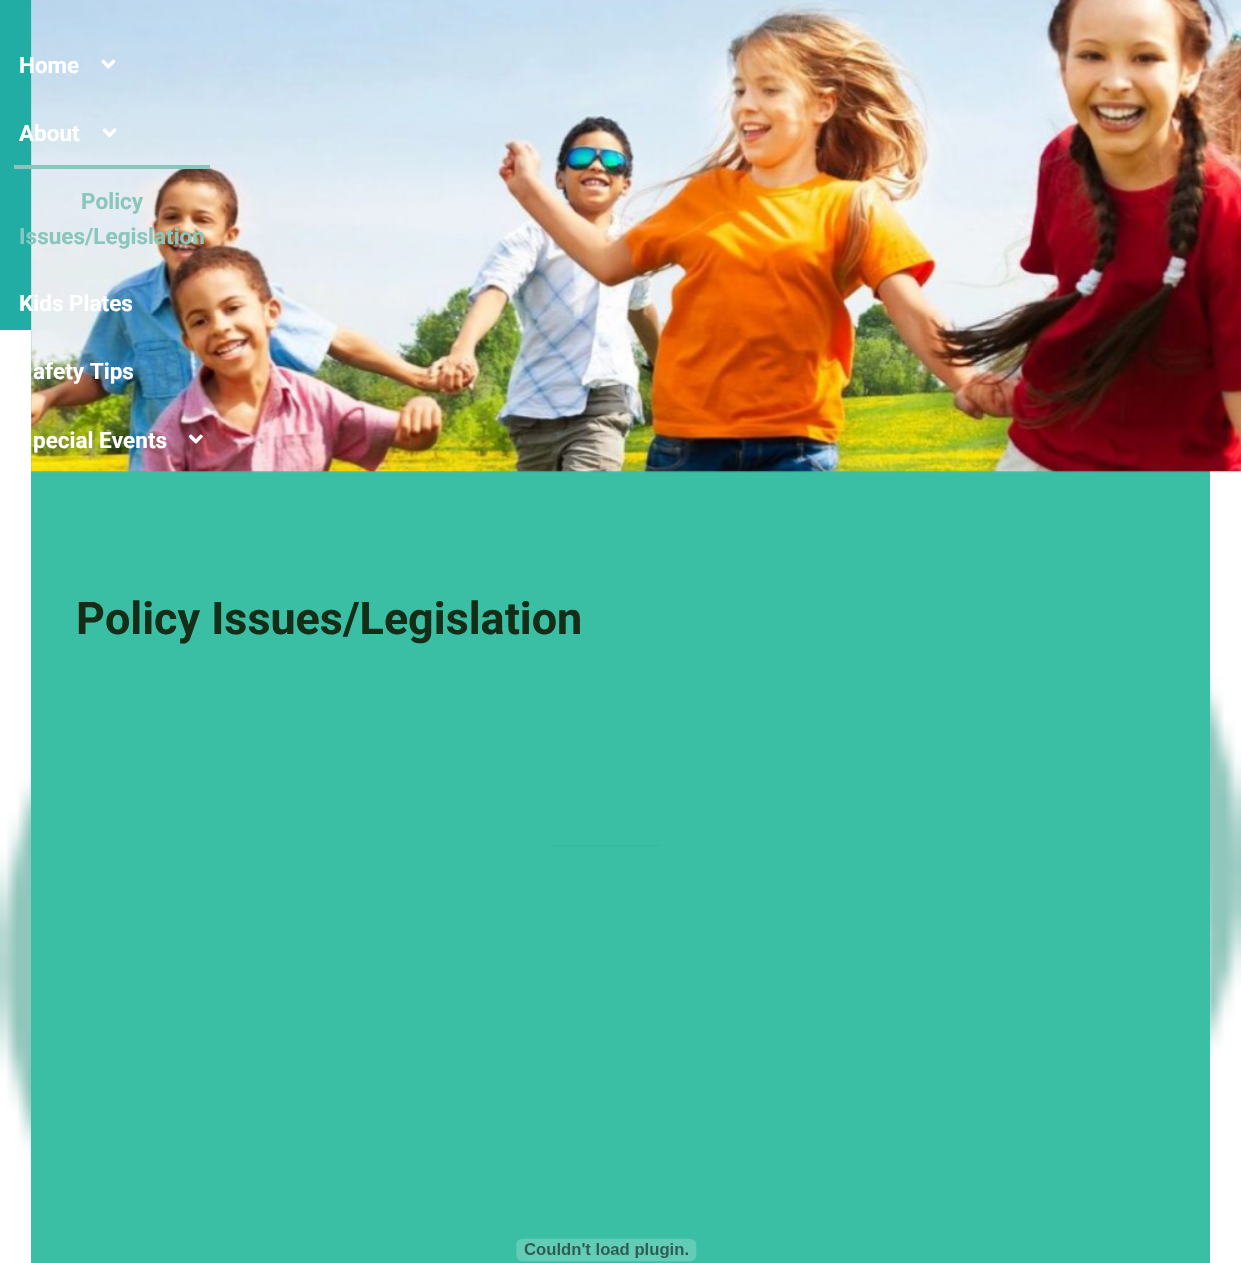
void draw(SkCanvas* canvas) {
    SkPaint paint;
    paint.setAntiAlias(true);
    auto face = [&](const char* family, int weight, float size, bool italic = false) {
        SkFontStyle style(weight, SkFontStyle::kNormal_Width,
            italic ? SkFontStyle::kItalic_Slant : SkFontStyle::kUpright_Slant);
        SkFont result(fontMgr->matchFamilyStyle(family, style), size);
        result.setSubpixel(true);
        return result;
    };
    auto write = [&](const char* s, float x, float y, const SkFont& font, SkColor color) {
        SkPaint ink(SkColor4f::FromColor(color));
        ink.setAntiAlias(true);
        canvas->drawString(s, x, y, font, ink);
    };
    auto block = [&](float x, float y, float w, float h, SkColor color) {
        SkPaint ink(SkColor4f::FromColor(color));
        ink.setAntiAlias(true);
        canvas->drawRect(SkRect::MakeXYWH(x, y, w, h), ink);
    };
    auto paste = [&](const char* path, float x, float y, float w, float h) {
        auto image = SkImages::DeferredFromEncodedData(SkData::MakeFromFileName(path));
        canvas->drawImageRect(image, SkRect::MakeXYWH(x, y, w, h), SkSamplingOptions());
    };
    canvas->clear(SkColorSetRGB(34, 173, 164));
    paste("pic1.png", 0, 330, 1241, 933);
    block(31, 471, 1179, 792, SkColorSetRGB(59, 191, 164));
    block(31, 0, 1210, 471, SkColorSetRGB(100, 214, 185));
    paste("pic2.png", 31, 0, 1210, 473);
    auto kFont1 = face("Roboto", 700, 22.5f);
    write("Home", 19, 73, kFont1, SK_ColorWHITE);
    paste("pic3.png", 101, 59, 15, 10);
    write("About", 19, 141, kFont1, SK_ColorWHITE);
    paste("pic4.png", 102, 128, 15, 10);
    block(14, 165, 196, 4, SkColorSetRGB(137, 199, 188));
    write("Policy", 81, 209, kFont1, SkColorSetRGB(137, 199, 188));
    write("Issues/Legislation", 19, 244, kFont1, SkColorSetRGB(137, 199, 188));
    write("Kids Plates", 19, 311, kFont1, SK_ColorWHITE);
    write("afety Tips", 33, 379, kFont1, SK_ColorWHITE);
    write("pecial Events", 33, 448, kFont1, SK_ColorWHITE);
    paste("pic5.png", 188, 434, 15, 10);
    auto kFont2 = face("Roboto", 700, 44.9f);
    write("Policy Issues/Legislation", 76, 634, kFont2, SkColorSetRGB(20, 45, 22));
    block(554, 845, 106, 1, SkColorSetRGB(57, 183, 157));
    paste("pic6.png", 516, 1238, 181, 24);
}
